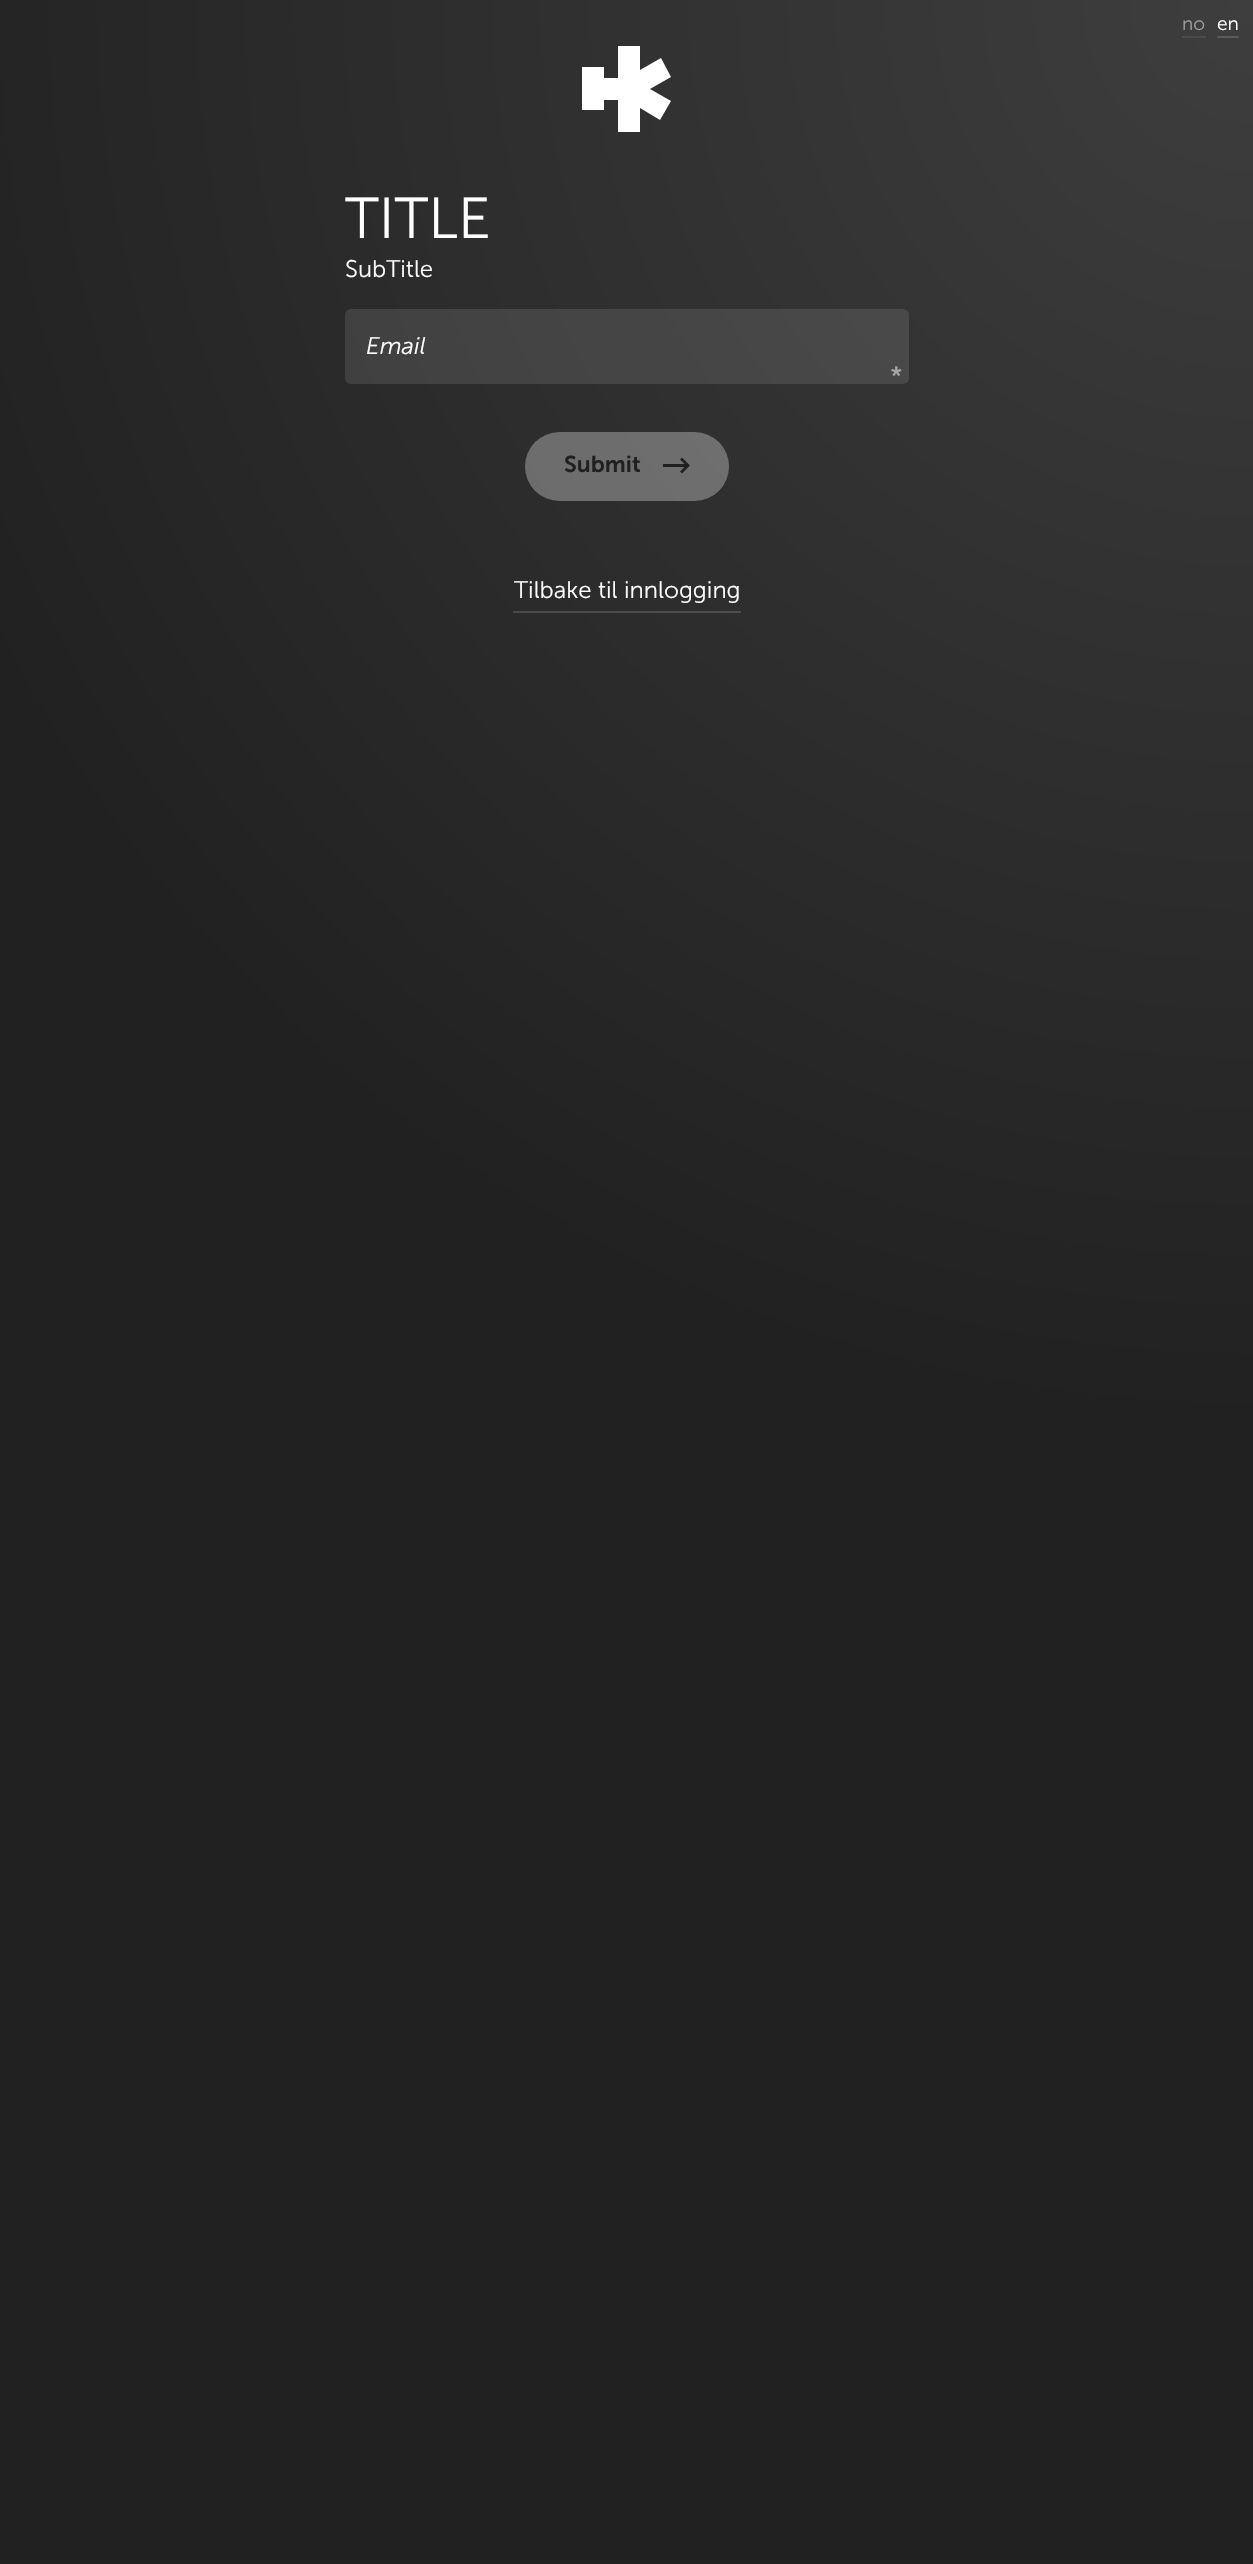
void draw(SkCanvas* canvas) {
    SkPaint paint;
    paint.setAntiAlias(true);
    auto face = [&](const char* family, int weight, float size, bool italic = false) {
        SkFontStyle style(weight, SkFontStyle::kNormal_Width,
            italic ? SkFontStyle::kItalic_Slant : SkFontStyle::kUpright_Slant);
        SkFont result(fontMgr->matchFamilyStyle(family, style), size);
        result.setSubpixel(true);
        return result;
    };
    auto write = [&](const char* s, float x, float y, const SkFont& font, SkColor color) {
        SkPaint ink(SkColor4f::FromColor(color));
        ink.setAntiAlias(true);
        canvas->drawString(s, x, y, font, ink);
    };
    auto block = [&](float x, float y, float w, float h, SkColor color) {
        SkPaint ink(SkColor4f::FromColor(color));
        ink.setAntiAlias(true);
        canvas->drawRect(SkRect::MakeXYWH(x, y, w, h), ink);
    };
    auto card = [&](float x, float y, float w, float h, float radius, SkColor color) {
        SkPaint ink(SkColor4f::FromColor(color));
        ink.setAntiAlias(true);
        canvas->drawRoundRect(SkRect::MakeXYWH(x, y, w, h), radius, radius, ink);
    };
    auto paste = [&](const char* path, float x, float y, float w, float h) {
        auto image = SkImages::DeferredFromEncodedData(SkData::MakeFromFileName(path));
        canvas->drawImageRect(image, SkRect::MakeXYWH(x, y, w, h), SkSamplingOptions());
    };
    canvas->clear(SK_ColorWHITE);
    {
        const SkColor colors[] = {SkColorSetRGB(62, 62, 62), SkColorSetRGB(33, 33, 33)};
        const float stops[] = {0, 0.5f};
        paint.setShader(SkGradientShader::MakeRadial({1254, 0}, 2855, colors, stops, 2, SkTileMode::kClamp));
        paint.setAlpha(255);
    }
    canvas->drawRect(SkRect::MakeXYWH(0, 0, 1253, 2564), paint);
    {
        const SkColor colors[] = {SkColorSetRGB(91, 91, 91), SkColorSetRGB(66, 66, 66)};
        const float stops[] = {0, 0.5f};
        paint.setShader(SkGradientShader::MakeRadial({1254, 0}, 2855, colors, stops, 2, SkTileMode::kClamp));
        paint.setAlpha(255);
    }
    canvas->drawRect(SkRect::MakeXYWH(513, 611, 228, 2), paint);
    auto kFont1 = face("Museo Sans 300", 300, 19);
    write("no", 1182, 30, kFont1, SkColorSetRGB(158, 158, 158));
    block(1182, 36, 24, 2, SkColorSetRGB(75, 75, 75));
    write("en", 1217, 30, kFont1, SK_ColorWHITE);
    block(1217, 36, 22, 2, SkColorSetRGB(90, 90, 90));
    paint.setShader(nullptr);
    paint.setColor(SK_ColorWHITE);
    canvas->drawPath(SkPathBuilder().moveTo(650, 89).lineTo(671, 101).lineTo(660, 120).lineTo(640, 108).lineTo(640, 132).lineTo(618, 132).lineTo(618, 100).lineTo(604, 100).lineTo(604, 110).lineTo(582, 110).lineTo(582, 67).lineTo(604, 67).lineTo(604, 78).lineTo(618, 78).lineTo(618, 46).lineTo(640, 46).lineTo(640, 70).lineTo(661, 58).lineTo(671, 77).close().detach(), paint);
    auto kFont2 = face("Museo Sans 300", 300, 57.5f);
    write("TITLE", 345, 238, kFont2, SK_ColorWHITE);
    auto kFont3 = face("Museo Sans 300", 300, 24);
    write("SubTitle", 345, 277, kFont3, SK_ColorWHITE);
    card(345, 309, 564, 75, 6, SkColorSetARGB(26, 255, 255, 255));
    auto kFont4 = face("Museo Sans 300", 300, 24, true);
    write("Email", 366, 354, kFont4, SK_ColorWHITE);
    paste("pic1.png", 891, 366, 11, 11);
    card(525, 432, 204, 69, 34.5f, SkColorSetARGB(77, 255, 255, 255));
    auto kFont5 = face("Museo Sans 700", 600, 23);
    write("Submit", 564, 472, kFont5, SkColorSetRGB(32, 32, 32));
    paint.setColor(SkColorSetRGB(33, 33, 33));
    canvas->drawPath(SkPathBuilder().moveTo(690, 465.5f).lineTo(682, 473.5f).lineTo(680, 471.5f).lineTo(684.5f, 467).lineTo(663, 467).lineTo(663, 464).lineTo(684.5f, 464).lineTo(680, 459.5f).lineTo(682, 457.5f).close().detach(), paint);
    write("Tilbake til innlogging", 514, 598, kFont3, SK_ColorWHITE);
}
